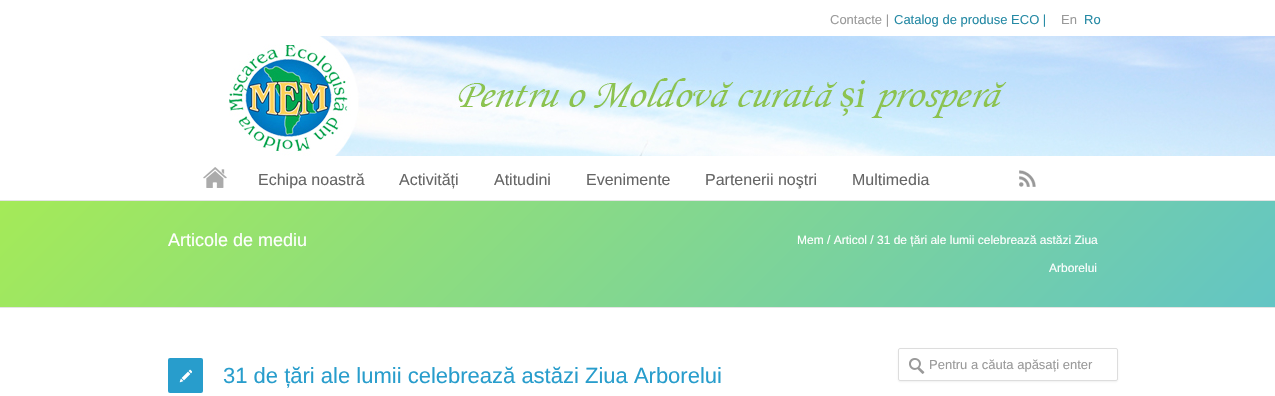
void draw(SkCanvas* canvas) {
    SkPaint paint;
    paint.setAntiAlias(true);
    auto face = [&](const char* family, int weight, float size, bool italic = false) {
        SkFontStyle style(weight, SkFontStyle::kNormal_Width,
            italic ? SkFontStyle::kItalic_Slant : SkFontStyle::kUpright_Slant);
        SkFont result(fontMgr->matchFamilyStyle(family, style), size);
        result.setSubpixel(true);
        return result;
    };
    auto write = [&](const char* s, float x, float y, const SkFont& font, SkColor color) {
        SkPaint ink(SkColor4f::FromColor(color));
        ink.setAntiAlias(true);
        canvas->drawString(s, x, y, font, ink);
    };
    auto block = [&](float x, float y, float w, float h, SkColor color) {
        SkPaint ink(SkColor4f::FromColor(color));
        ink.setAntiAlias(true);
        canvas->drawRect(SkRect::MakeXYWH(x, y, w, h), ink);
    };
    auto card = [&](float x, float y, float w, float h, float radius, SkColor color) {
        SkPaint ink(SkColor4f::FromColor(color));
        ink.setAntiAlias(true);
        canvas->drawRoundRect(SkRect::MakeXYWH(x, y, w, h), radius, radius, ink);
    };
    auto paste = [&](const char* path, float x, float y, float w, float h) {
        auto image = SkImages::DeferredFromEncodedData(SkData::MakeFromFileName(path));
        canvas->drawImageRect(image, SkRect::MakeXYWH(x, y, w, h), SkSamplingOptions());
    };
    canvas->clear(SK_ColorWHITE);
    auto kFont1 = face("Liberation Sans", 400, 13);
    write("Contacte |", 830, 24, kFont1, SkColorSetRGB(153, 153, 153));
    write("Catalog de produse ECO |", 894, 24, kFont1, SkColorSetRGB(36, 137, 164));
    write("En", 1061, 24, kFont1, SkColorSetRGB(153, 153, 153));
    write("Ro", 1084, 24, kFont1, SkColorSetRGB(36, 137, 164));
    paste("pic1.png", 229, 36, 1046, 120);
    paste("pic2.png", 203, 167, 24, 21);
    auto kFont2 = face("Liberation Sans", 400, 16);
    write("Echipa noastră", 258, 185, kFont2, SkColorSetRGB(102, 102, 102));
    write("Activități", 399, 185, kFont2, SkColorSetRGB(102, 102, 102));
    write("Atitudini", 494, 185, kFont2, SkColorSetRGB(102, 102, 102));
    write("Evenimente", 586, 185, kFont2, SkColorSetRGB(102, 102, 102));
    write("Partenerii noştri", 705, 185, kFont2, SkColorSetRGB(102, 102, 102));
    write("Multimedia", 852, 185, kFont2, SkColorSetRGB(102, 102, 102));
    paste("pic3.png", 1019, 170, 17, 17);
    {
        const SkColor colors[] = {SkColorSetRGB(164, 234, 88), SkColorSetRGB(99, 197, 196)};
        const float stops[] = {0, 1};
        const SkPoint ends[] = {{292, -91}, {983, 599}};
        paint.setShader(SkGradientShader::MakeLinear(ends, colors, stops, 2, SkTileMode::kClamp));
        paint.setAlpha(255);
    }
    canvas->drawRect(SkRect::MakeXYWH(0, 201, 1275, 106), paint);
    block(0, 200, 1275, 1, SkColorSetRGB(228, 228, 228));
    block(0, 307, 1275, 1, SkColorSetRGB(228, 228, 228));
    auto kFont3 = face("Liberation Sans", 400, 18);
    write("Articole de mediu", 168, 246, kFont3, SK_ColorWHITE);
    auto kFont4 = face("Liberation Sans", 400, 12);
    write("Mem / Articol / 31 de țări ale lumii celebrează astăzi Ziua", 797, 244, kFont4, SK_ColorWHITE);
    write("Arborelui", 1049, 272, kFont4, SK_ColorWHITE);
    card(168, 358, 35, 35, 2, SkColorSetRGB(40, 157, 204));
    paste("pic4.png", 179, 369, 13, 14);
    auto kFont5 = face("Liberation Sans", 400, 22);
    write("31 de țări ale lumii celebrează astăzi Ziua Arborelui", 223, 383, kFont5, SkColorSetRGB(40, 157, 204));
    canvas->save();
    canvas->clipPath(SkPathBuilder(SkPathFillType::kEvenOdd).moveTo(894, 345).lineTo(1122, 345).lineTo(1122, 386).lineTo(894, 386).close().moveTo(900, 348).lineTo(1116, 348).cubicTo(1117, 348, 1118, 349, 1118, 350).lineTo(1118, 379).cubicTo(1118, 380, 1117, 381, 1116, 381).lineTo(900, 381).cubicTo(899, 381, 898, 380, 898, 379).lineTo(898, 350).cubicTo(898, 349, 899, 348, 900, 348).close().detach(), true);
    paint.setShader(nullptr);
    paint.setColor(SkColorSetARGB(51, 180, 180, 180));
    paint.setMaskFilter(SkMaskFilter::MakeBlur(kNormal_SkBlurStyle, 1));
    canvas->drawRoundRect(SkRect::MakeXYWH(898, 349, 220, 33), 2, 2, paint);
    paint.setMaskFilter(nullptr);
    canvas->restore();
    paste("pic5.png", 909, 358, 16, 16);
    paint.setStyle(SkPaint::kStroke_Style);
    paint.setStrokeWidth(1);
    paint.setColor(SkColorSetRGB(221, 221, 221));
    canvas->drawRoundRect(SkRect::MakeXYWH(898.5f, 348.5f, 219, 32), 1.5f, 1.5f, paint);
    write("Pentru a căuta apăsați enter", 929, 369, kFont1, SkColorSetRGB(153, 153, 153));
}
